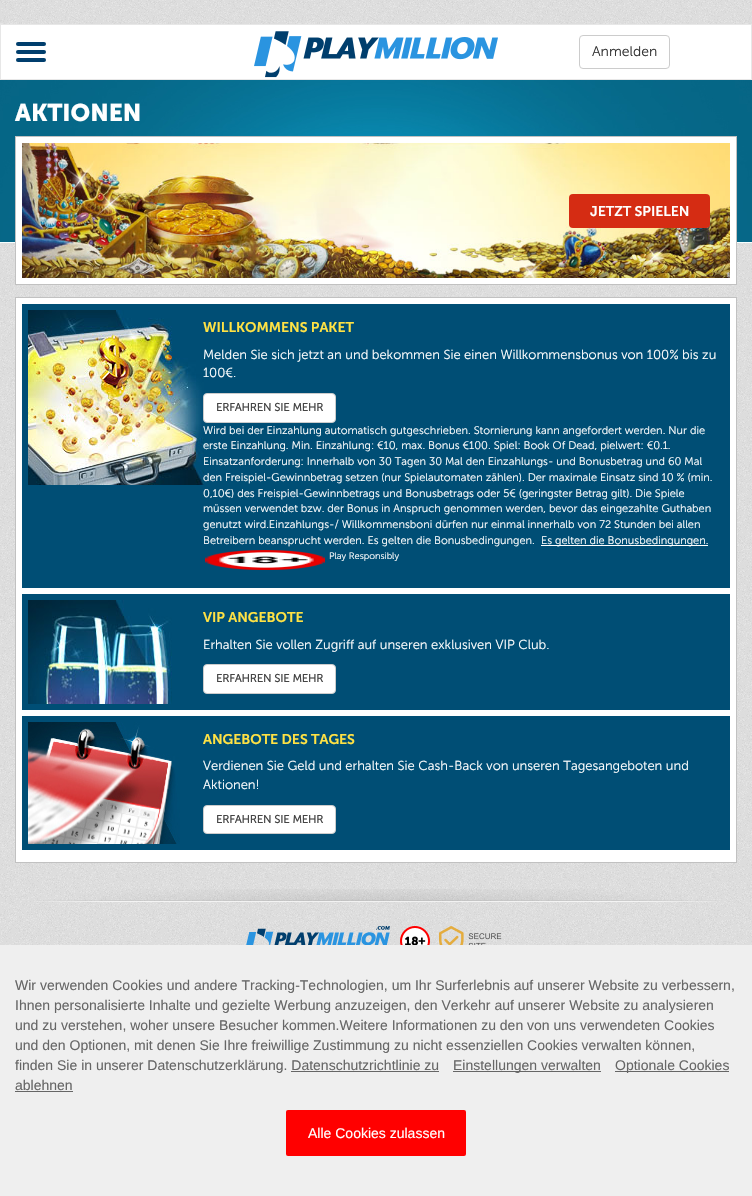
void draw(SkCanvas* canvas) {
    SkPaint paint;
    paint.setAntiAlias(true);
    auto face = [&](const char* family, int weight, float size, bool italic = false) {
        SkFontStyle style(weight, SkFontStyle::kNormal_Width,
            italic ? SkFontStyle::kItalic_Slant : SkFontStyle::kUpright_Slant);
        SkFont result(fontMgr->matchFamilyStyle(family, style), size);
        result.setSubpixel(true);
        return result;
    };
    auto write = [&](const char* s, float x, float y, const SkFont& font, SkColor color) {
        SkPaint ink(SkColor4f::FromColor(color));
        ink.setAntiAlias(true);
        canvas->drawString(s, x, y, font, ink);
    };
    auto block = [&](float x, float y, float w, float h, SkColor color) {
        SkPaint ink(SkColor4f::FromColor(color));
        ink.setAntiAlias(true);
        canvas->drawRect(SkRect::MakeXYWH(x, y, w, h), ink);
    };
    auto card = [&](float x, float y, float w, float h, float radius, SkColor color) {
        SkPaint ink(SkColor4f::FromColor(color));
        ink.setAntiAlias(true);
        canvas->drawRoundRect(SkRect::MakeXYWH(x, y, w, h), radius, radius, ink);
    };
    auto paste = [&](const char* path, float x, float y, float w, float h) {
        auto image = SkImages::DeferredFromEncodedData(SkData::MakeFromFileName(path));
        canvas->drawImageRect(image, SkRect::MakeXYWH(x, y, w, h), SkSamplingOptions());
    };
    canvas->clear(SK_ColorWHITE);
    paste("pic1.png", 0, 0, 752, 945);
    paste("pic2.png", 0, 242, 752, 1);
    paste("pic3.png", 0, 80, 752, 162);
    paint.setColor(SK_ColorWHITE);
    canvas->drawRect(SkRect::MakeXYWH(0.5f, 24.5f, 751, 55), paint);
    paint.setStyle(SkPaint::kStroke_Style);
    paint.setStrokeWidth(1);
    paint.setColor(SkColorSetRGB(231, 231, 231));
    canvas->drawRect(SkRect::MakeXYWH(0.5f, 24.5f, 751, 55), paint);
    card(16, 50, 30, 4, 2, SkColorSetRGB(0, 62, 109));
    card(16, 42, 30, 4, 2, SkColorSetRGB(0, 62, 109));
    card(16, 58, 30, 4, 2, SkColorSetRGB(0, 62, 109));
    paste("pic4.png", 254, 31, 244, 47);
    paint.setColor(SkColorSetRGB(204, 204, 204));
    canvas->drawRoundRect(SkRect::MakeXYWH(579.5f, 35.5f, 90, 33), 3.5f, 3.5f, paint);
    auto kFont1 = face("Museo Sans", 300, 14);
    write("Anmelden", 592, 56, kFont1, SkColorSetRGB(51, 51, 51));
    auto kFont2 = face("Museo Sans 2", 700, 24);
    write("AKTIONEN", 15, 121, kFont2, SK_ColorWHITE);
    paint.setStyle(SkPaint::kFill_Style);
    paint.setColor(SK_ColorWHITE);
    canvas->drawRect(SkRect::MakeXYWH(15.5f, 136.5f, 721, 148), paint);
    paint.setStyle(SkPaint::kStroke_Style);
    paint.setColor(SkColorSetRGB(193, 193, 193));
    canvas->drawRect(SkRect::MakeXYWH(15.5f, 136.5f, 721, 148), paint);
    paste("pic5.png", 22, 143, 708, 135);
    card(569, 194, 141, 34, 4, SkColorSetRGB(213, 44, 19));
    auto kFont3 = face("Museo Sans", 600, 14);
    write("JETZT SPIELEN", 590, 216, kFont3, SK_ColorWHITE);
    paint.setStyle(SkPaint::kFill_Style);
    paint.setColor(SK_ColorWHITE);
    canvas->drawRect(SkRect::MakeXYWH(15.5f, 297.5f, 721, 565), paint);
    paint.setStyle(SkPaint::kStroke_Style);
    paint.setColor(SkColorSetRGB(193, 193, 193));
    canvas->drawRect(SkRect::MakeXYWH(15.5f, 297.5f, 721, 565), paint);
    block(22, 304, 708, 284, SkColorSetRGB(0, 78, 117));
    paste("pic6.png", 28, 310, 176, 175);
    write("WILLKOMMENS PAKET", 203, 332, kFont3, SkColorSetRGB(255, 226, 68));
    auto kFont4 = face("Museo Sans", 300, 13);
    write("Melden Sie sich jetzt an und bekommen Sie einen Willkommensbonus von 100% bis zu", 203, 359, kFont4, SK_ColorWHITE);
    write("100€.", 203, 377, kFont4, SK_ColorWHITE);
    paint.setStyle(SkPaint::kFill_Style);
    paint.setColor(SK_ColorWHITE);
    canvas->drawRoundRect(SkRect::MakeXYWH(203.5f, 393.5f, 132, 29), 3.5f, 3.5f, paint);
    paint.setStyle(SkPaint::kStroke_Style);
    paint.setColor(SkColorSetRGB(204, 204, 204));
    canvas->drawRoundRect(SkRect::MakeXYWH(203.5f, 393.5f, 132, 29), 3.5f, 3.5f, paint);
    auto kFont5 = face("Museo Sans", 700, 11);
    write("ERFAHREN SIE MEHR", 216, 411, kFont5, SkColorSetRGB(68, 68, 68));
    auto kFont6 = face("Museo Sans", 300, 11);
    write("Wird bei der Einzahlung automatisch gutgeschrieben. Stornierung kann angefordert werden. Nur die", 203, 434, kFont6, SK_ColorWHITE);
    write("erste Einzahlung. Min. Einzahlung: €10, max. Bonus €100. Spiel: Book Of Dead, pielwert: €0.1.", 203, 449, kFont6, SK_ColorWHITE);
    write("Einsatzanforderung: Innerhalb von 30 Tagen 30 Mal den Einzahlungs- und Bonusbetrag und 60 Mal", 203, 465, kFont6, SK_ColorWHITE);
    write("den Freispiel-Gewinnbetrag setzen (nur Spielautomaten zählen). Der maximale Einsatz sind 10 % (min.", 203, 481, kFont6, SK_ColorWHITE);
    write("0,10€) des Freispiel-Gewinnbetrags und Bonusbetrags oder 5€ (geringster Betrag gilt). Die Spiele", 203, 497, kFont6, SK_ColorWHITE);
    write("müssen verwendet bzw. der Bonus in Anspruch genommen werden, bevor das eingezahlte Guthaben", 203, 512, kFont6, SK_ColorWHITE);
    write("genutzt wird.Einzahlungs-/ Willkommensboni dürfen nur einmal innerhalb von 72 Stunden bei allen", 203, 528, kFont6, SK_ColorWHITE);
    write("Betreibern beansprucht werden. Es gelten die Bonusbedingungen.", 203, 544, kFont6, SK_ColorWHITE);
    block(541, 545, 167, 1, SK_ColorWHITE);
    write("Es gelten die Bonusbedingungen.", 541, 544, kFont6, SK_ColorWHITE);
    paste("pic7.png", 205, 550, 120, 20);
    auto kFont7 = face("Museo Sans", 300, 9.25f);
    write("Play Responsibly", 329, 559, kFont7, SK_ColorWHITE);
    block(22, 594, 708, 116, SkColorSetRGB(0, 78, 117));
    paste("pic8.png", 28, 600, 144, 104);
    write("VIP ANGEBOTE", 203, 622, kFont3, SkColorSetRGB(255, 226, 68));
    write("Erhalten Sie vollen Zugriff auf unseren exklusiven VIP Club.", 203, 649, kFont4, SK_ColorWHITE);
    paint.setStyle(SkPaint::kFill_Style);
    paint.setColor(SK_ColorWHITE);
    canvas->drawRoundRect(SkRect::MakeXYWH(203.5f, 664.5f, 132, 29), 3.5f, 3.5f, paint);
    paint.setStyle(SkPaint::kStroke_Style);
    paint.setColor(SkColorSetRGB(204, 204, 204));
    canvas->drawRoundRect(SkRect::MakeXYWH(203.5f, 664.5f, 132, 29), 3.5f, 3.5f, paint);
    write("ERFAHREN SIE MEHR", 216, 682, kFont5, SkColorSetRGB(68, 68, 68));
    block(22, 716, 708, 134, SkColorSetRGB(0, 78, 117));
    paste("pic9.png", 28, 722, 152, 122);
    write("ANGEBOTE DES TAGES", 203, 744, kFont3, SkColorSetRGB(255, 226, 68));
    write("Verdienen Sie Geld und erhalten Sie Cash-Back von unseren Tagesangeboten und", 203, 770, kFont4, SK_ColorWHITE);
    write("Aktionen!", 203, 789, kFont4, SK_ColorWHITE);
    paint.setStyle(SkPaint::kFill_Style);
    paint.setColor(SK_ColorWHITE);
    canvas->drawRoundRect(SkRect::MakeXYWH(203.5f, 805.5f, 132, 28), 3.5f, 3.5f, paint);
    paint.setStyle(SkPaint::kStroke_Style);
    paint.setColor(SkColorSetRGB(204, 204, 204));
    canvas->drawRoundRect(SkRect::MakeXYWH(203.5f, 805.5f, 132, 28), 3.5f, 3.5f, paint);
    write("ERFAHREN SIE MEHR", 216, 823, kFont5, SkColorSetRGB(68, 68, 68));
    paste("pic10.png", 35, 889, 683, 13);
    paste("pic11.png", 246, 926, 144, 19);
    paste("pic12.png", 400, 926, 30, 19);
    paste("pic13.png", 439, 926, 63, 19);
    block(0, 945, 752, 251, SkColorSetRGB(239, 239, 239));
    auto kFont8 = face("Liberation Sans", 400, 14);
    write("Wir verwenden Cookies und andere Tracking-Technologien, um Ihr Surferlebnis auf unserer Website zu verbessern,", 15, 990, kFont8, SkColorSetRGB(102, 102, 102));
    write("Ihnen personalisierte Inhalte und gezielte Werbung anzuzeigen, den Verkehr auf unserer Website zu analysieren", 15, 1010, kFont8, SkColorSetRGB(102, 102, 102));
    write("und zu verstehen, woher unsere Besucher kommen.Weitere Informationen zu den von uns verwendeten Cookies", 15, 1030, kFont8, SkColorSetRGB(102, 102, 102));
    write("und den Optionen, mit denen Sie Ihre freiwillige Zustimmung zu nicht essenziellen Cookies verwalten können,", 15, 1050, kFont8, SkColorSetRGB(102, 102, 102));
    write("finden Sie in unserer Datenschutzerklärung. Datenschutzrichtlinie zu", 15, 1070, kFont8, SkColorSetRGB(102, 102, 102));
    block(453, 1071, 148, 1, SkColorSetRGB(102, 102, 102));
    write("Einstellungen verwalten", 453, 1070, kFont8, SkColorSetRGB(102, 102, 102));
    block(615, 1071, 114, 1, SkColorSetRGB(102, 102, 102));
    write("Optionale Cookies", 615, 1070, kFont8, SkColorSetRGB(102, 102, 102));
    block(291, 1071, 148, 1, SkColorSetRGB(102, 102, 102));
    write("ablehnen", 15, 1090, kFont8, SkColorSetRGB(102, 102, 102));
    block(15, 1091, 58, 1, SkColorSetRGB(102, 102, 102));
    card(286, 1110, 180, 46, 2, SkColorSetRGB(255, 0, 0));
    write("Alle Cookies zulassen", 308, 1138, kFont8, SK_ColorWHITE);
}
